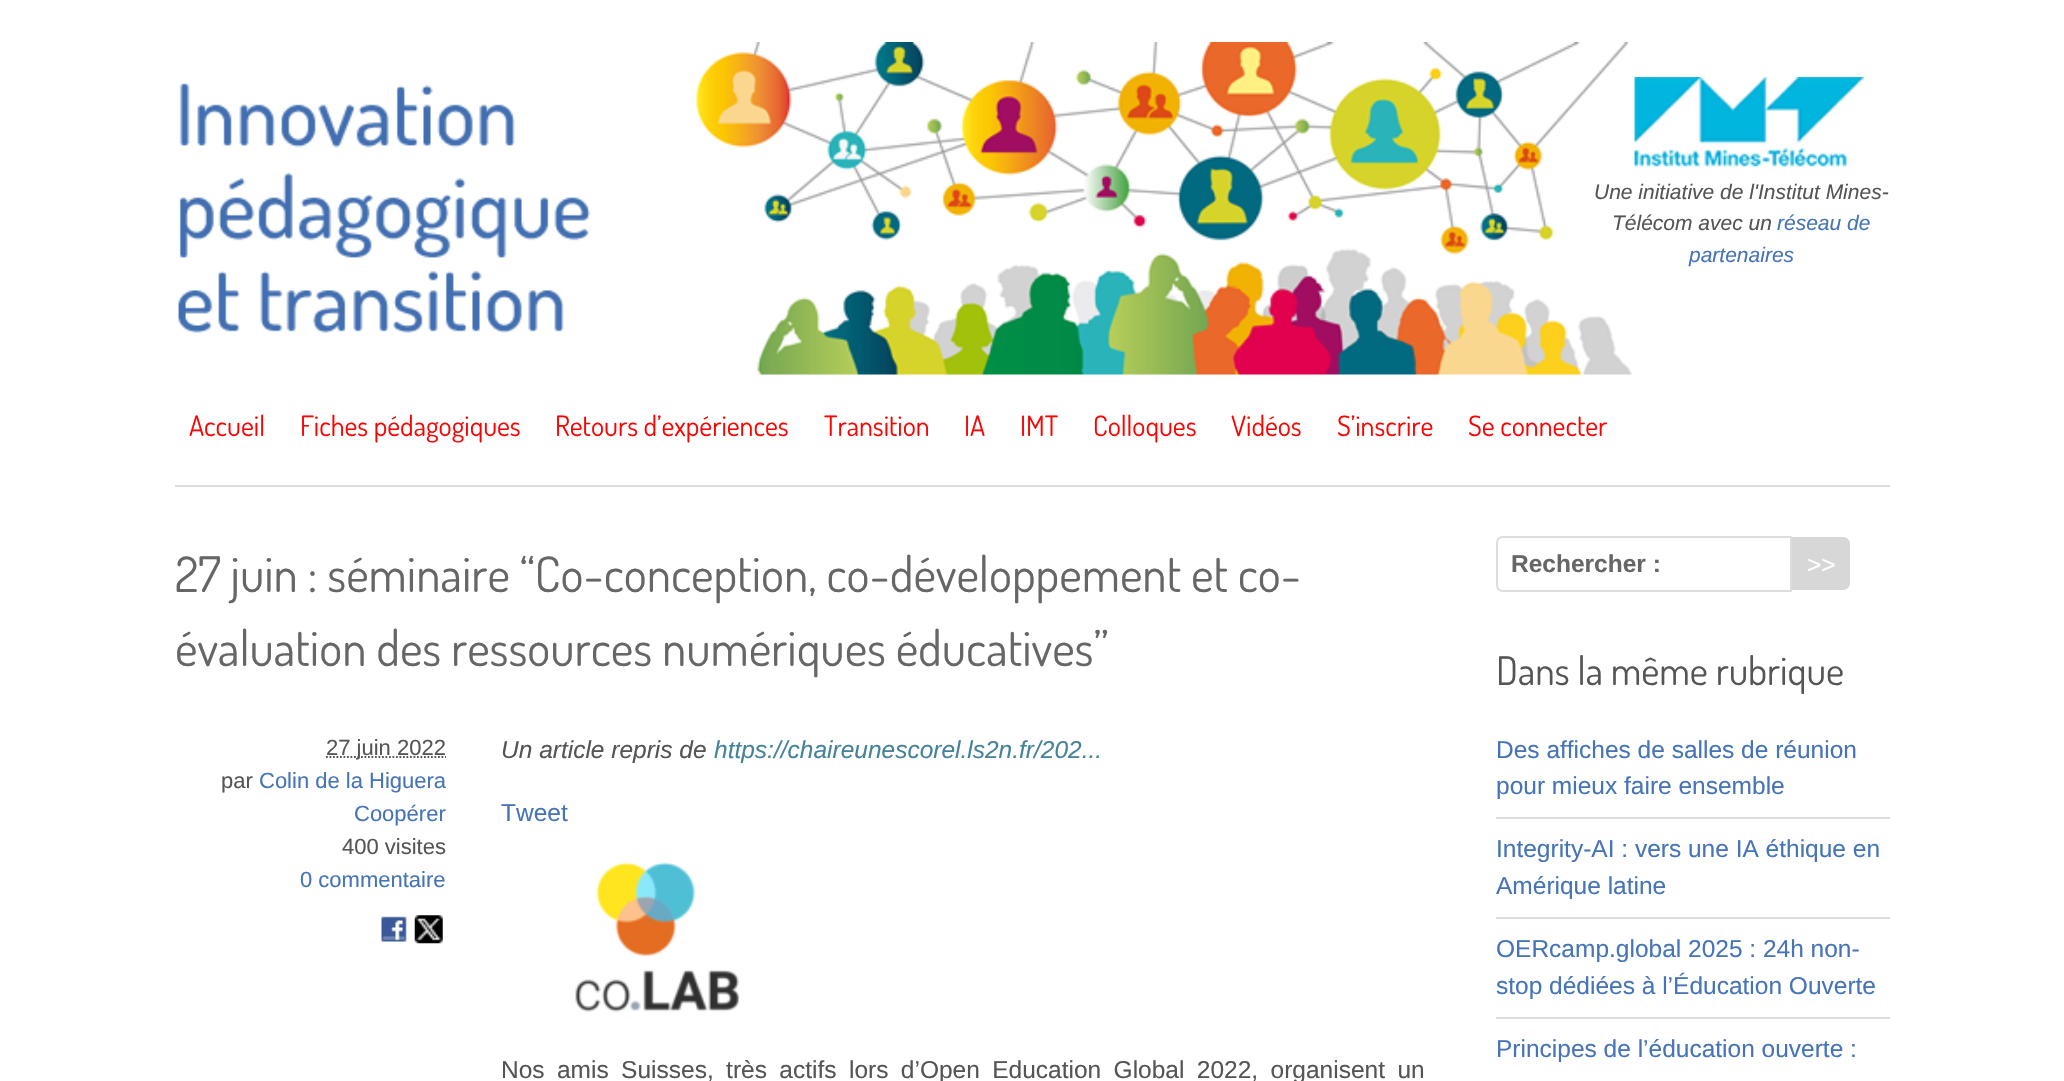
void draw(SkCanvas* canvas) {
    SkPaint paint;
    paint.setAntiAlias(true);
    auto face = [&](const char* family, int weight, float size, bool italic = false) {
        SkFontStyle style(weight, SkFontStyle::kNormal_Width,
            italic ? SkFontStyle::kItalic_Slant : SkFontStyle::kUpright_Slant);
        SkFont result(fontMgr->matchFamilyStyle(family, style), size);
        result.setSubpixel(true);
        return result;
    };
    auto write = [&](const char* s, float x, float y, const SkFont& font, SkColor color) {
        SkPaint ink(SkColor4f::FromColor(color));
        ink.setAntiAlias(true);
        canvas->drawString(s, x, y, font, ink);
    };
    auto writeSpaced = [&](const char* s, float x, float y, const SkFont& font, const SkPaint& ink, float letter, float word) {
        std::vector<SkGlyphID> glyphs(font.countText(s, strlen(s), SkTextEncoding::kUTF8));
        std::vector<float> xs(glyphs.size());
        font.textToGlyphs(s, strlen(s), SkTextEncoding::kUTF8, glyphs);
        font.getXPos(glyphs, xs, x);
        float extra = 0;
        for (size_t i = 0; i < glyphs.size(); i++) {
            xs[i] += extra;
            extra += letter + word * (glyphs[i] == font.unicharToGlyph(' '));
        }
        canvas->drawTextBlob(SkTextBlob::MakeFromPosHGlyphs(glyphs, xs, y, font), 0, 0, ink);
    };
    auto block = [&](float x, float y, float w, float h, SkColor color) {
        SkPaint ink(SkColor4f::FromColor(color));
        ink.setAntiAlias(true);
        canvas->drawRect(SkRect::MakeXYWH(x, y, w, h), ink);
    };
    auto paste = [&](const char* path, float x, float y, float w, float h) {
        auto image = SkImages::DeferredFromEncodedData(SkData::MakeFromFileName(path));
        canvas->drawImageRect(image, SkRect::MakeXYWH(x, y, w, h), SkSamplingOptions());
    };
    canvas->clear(SK_ColorWHITE);
    paste("pic1.png", 178, 42, 1454, 333);
    paste("pic2.png", 1634, 77, 230, 90);
    auto kFont1 = face("Liberation Sans", 400, 21, true);
    write("Une initiative de l'Institut Mines-", 1594, 199, kFont1, SkColorSetRGB(85, 85, 85));
    write("Télécom avec un", 1612, 230, kFont1, SkColorSetRGB(85, 85, 85));
    write("réseau de", 1777, 230, kFont1, SkColorSetRGB(70, 116, 184));
    write("partenaires", 1689, 262, kFont1, SkColorSetRGB(70, 116, 184));
    auto kFont2 = face("Dosis", 400, 28);
    write("Accueil", 189, 436, kFont2, SkColorSetRGB(252, 3, 2));
    write("Fiches pédagogiques", 300, 436, kFont2, SkColorSetRGB(252, 3, 2));
    write("Retours d’expériences", 555, 436, kFont2, SkColorSetRGB(252, 3, 2));
    write("Transition", 824, 436, kFont2, SkColorSetRGB(252, 3, 2));
    write("IA", 964, 436, kFont2, SkColorSetRGB(252, 3, 2));
    write("IMT", 1020, 436, kFont2, SkColorSetRGB(252, 3, 2));
    write("Colloques", 1093, 436, kFont2, SkColorSetRGB(252, 3, 2));
    write("Vidéos", 1231, 436, kFont2, SkColorSetRGB(252, 3, 2));
    write("S’inscrire", 1337, 436, kFont2, SkColorSetRGB(252, 3, 2));
    write("Se connecter", 1468, 436, kFont2, SkColorSetRGB(252, 3, 2));
    block(175, 485, 1715, 2, SkColorSetRGB(221, 221, 221));
    auto kFont3 = face("Dosis", 400, 49);
    write("27 juin : séminaire “Co-conception, co-développement et co-", 175, 592, kFont3, SkColorSetRGB(102, 102, 102));
    write("évaluation des ressources numériques éducatives”", 175, 666, kFont3, SkColorSetRGB(102, 102, 102));
    paint.setStyle(SkPaint::kStroke_Style);
    paint.setStrokeWidth(1.8f);
    paint.setColor(SkColorSetRGB(85, 85, 85));
    paint.setPathEffect(SkDashPathEffect::Make({{1.75f, 1.75f}}, 0));
    canvas->drawPath(SkPathBuilder().moveTo(326, 757).lineTo(446, 757).detach(), paint);
    paint.setPathEffect(nullptr);
    auto kFont4 = face("Liberation Sans", 400, 22);
    write("27 juin 2022", 326, 755, kFont4, SkColorSetRGB(85, 85, 85));
    write("par", 221, 788, kFont4, SkColorSetRGB(85, 85, 85));
    write("Colin de la Higuera", 259, 788, kFont4, SkColorSetRGB(70, 116, 184));
    write("Coopérer", 354, 821, kFont4, SkColorSetRGB(70, 116, 184));
    write("400 visites", 342, 854, kFont4, SkColorSetRGB(85, 85, 85));
    write("0 commentaire", 300, 887, kFont4, SkColorSetRGB(70, 116, 184));
    paste("pic3.png", 381, 916, 26, 26);
    paste("pic4.png", 414, 915, 29, 29);
    auto kFont5 = face("Liberation Sans", 400, 24.5f, true);
    write("Un article repris de", 501, 758, kFont5, SkColorSetRGB(85, 85, 85));
    write("https://chaireunescorel.ls2n.fr/202...", 714, 758, kFont5, SkColorSetRGB(70, 131, 155));
    auto kFont6 = face("Liberation Sans", 400, 24.5f);
    write("Tweet", 501, 821, kFont6, SkColorSetRGB(70, 116, 184));
    paste("pic5.png", 575, 862, 165, 150);
    paint.setStyle(SkPaint::kFill_Style);
    writeSpaced("Nos amis Suisses, très actifs lors d’Open Education Global 2022, organisent un", 501, 1078, kFont6, paint, 0, 5.6f);
    paint.setStyle(SkPaint::kStroke_Style);
    paint.setStrokeWidth(2);
    paint.setColor(SkColorSetRGB(221, 221, 221));
    canvas->drawPath(SkPathBuilder().moveTo(1503, 537).lineTo(1791, 537).lineTo(1791, 591).lineTo(1503, 591).cubicTo(1499.5f, 591, 1497, 588.5f, 1497, 585).lineTo(1497, 543).cubicTo(1497, 539.5f, 1499.5f, 537, 1503, 537).close().detach(), paint);
    auto kFont7 = face("Liberation Sans", 700, 24.5f);
    write("Rechercher :", 1511, 572, kFont7, SkColorSetRGB(102, 102, 102));
    paint.setStyle(SkPaint::kFill_Style);
    paint.setColor(SkColorSetRGB(215, 215, 215));
    canvas->drawPath(SkPathBuilder().moveTo(1792, 537).lineTo(1843, 537).cubicTo(1847, 537, 1850, 540, 1850, 544).lineTo(1850, 583).cubicTo(1850, 587, 1847, 590, 1843, 590).lineTo(1792, 590).close().detach(), paint);
    write(">>", 1807, 573, kFont6, SK_ColorWHITE);
    auto kFont8 = face("Dosis", 400, 39.25f);
    write("Dans la même rubrique", 1496, 685, kFont8, SkColorSetRGB(85, 85, 85));
    write("Des affiches de salles de réunion", 1496, 758, kFont6, SkColorSetRGB(70, 116, 184));
    write("pour mieux faire ensemble", 1496, 794, kFont6, SkColorSetRGB(70, 116, 184));
    block(1496, 817, 394, 2, SkColorSetRGB(221, 221, 221));
    write("Integrity-AI : vers une IA éthique en", 1496, 857, kFont6, SkColorSetRGB(70, 116, 184));
    write("Amérique latine", 1496, 894, kFont6, SkColorSetRGB(70, 116, 184));
    block(1496, 917, 394, 2, SkColorSetRGB(221, 221, 221));
    write("OERcamp.global 2025 : 24h non-", 1496, 957, kFont6, SkColorSetRGB(70, 116, 184));
    write("stop dédiées à l’Éducation Ouverte", 1496, 994, kFont6, SkColorSetRGB(70, 116, 184));
    block(1496, 1017, 394, 2, SkColorSetRGB(221, 221, 221));
    write("Principes de l’éducation ouverte :", 1496, 1057, kFont6, SkColorSetRGB(70, 116, 184));
}
